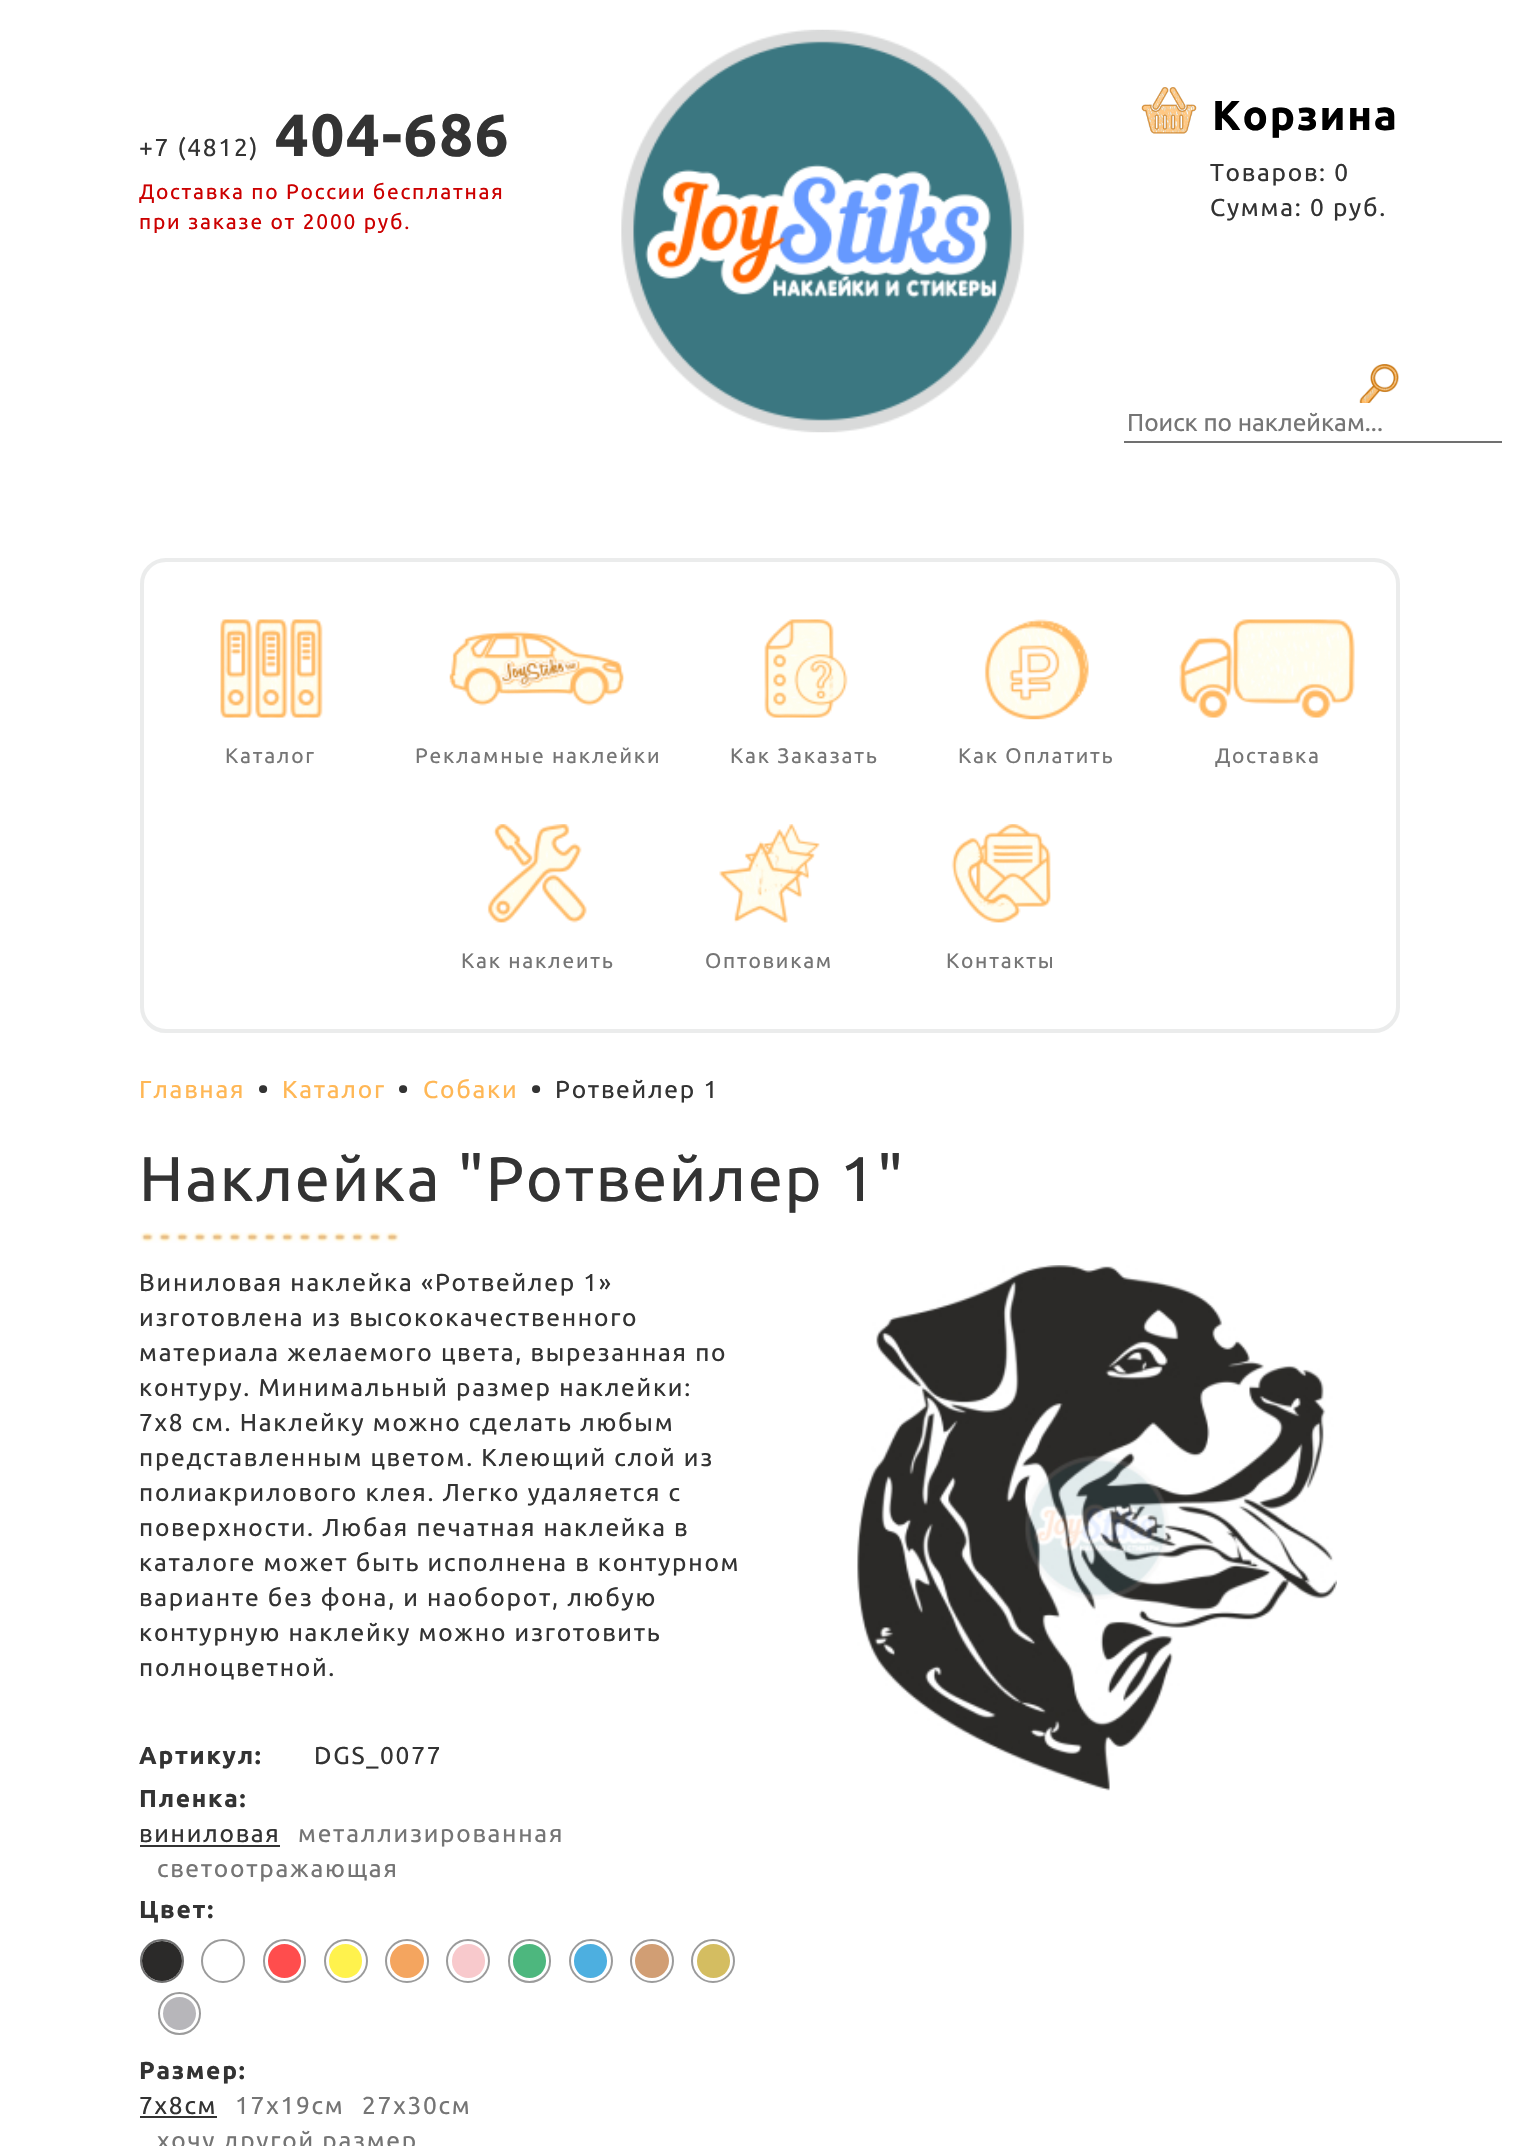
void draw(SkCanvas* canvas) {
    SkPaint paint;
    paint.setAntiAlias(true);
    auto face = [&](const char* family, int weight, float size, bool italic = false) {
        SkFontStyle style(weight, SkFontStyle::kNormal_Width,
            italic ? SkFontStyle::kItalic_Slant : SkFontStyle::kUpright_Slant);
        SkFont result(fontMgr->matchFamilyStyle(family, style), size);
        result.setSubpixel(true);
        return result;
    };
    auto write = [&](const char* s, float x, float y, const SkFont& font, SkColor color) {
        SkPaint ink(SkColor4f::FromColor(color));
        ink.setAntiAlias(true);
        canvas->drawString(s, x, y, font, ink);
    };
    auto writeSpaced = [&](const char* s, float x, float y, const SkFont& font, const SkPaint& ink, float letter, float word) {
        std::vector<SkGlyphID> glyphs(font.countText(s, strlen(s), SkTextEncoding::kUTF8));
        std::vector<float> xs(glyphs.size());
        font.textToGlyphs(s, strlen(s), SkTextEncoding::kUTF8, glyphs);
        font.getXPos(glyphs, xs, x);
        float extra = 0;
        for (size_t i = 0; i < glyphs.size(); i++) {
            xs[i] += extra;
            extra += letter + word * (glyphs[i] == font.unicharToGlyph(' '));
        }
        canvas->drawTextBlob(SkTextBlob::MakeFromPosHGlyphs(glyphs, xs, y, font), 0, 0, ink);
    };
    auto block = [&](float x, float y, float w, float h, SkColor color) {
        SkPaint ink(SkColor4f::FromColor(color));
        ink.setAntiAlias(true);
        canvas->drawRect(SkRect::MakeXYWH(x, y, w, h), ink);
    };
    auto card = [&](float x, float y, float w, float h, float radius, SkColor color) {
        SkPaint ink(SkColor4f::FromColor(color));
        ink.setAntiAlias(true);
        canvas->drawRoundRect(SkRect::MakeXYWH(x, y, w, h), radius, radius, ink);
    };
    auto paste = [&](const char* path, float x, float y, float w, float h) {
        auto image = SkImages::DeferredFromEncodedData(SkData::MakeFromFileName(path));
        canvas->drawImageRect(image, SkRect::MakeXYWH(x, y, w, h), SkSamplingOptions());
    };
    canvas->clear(SK_ColorWHITE);
    auto kFont1 = face("Ubuntu", 400, 24.5f);
    paint.setColor(SkColorSetRGB(51, 51, 51));
    writeSpaced("+7 (4812)", 139, 156, kFont1, paint, 1.75f, 0);
    auto kFont2 = face("Ubuntu", 700, 59.5f);
    writeSpaced("404-686", 275, 156, kFont2, paint, 1.75f, 0);
    auto kFont3 = face("Ubuntu", 400, 21);
    paint.setColor(SkColorSetRGB(204, 0, 0));
    writeSpaced("Доставка по России бесплатная", 139, 199, kFont3, paint, 1.75f, 0);
    writeSpaced("при заказе от 2000 руб.", 139, 229, kFont3, paint, 1.75f, 0);
    paste("pic1.png", 621, 29, 404, 404);
    paste("pic2.png", 1141, 87, 56, 47);
    auto kFont4 = face("Ubuntu", 700, 42);
    paint.setColor(SK_ColorBLACK);
    writeSpaced("Корзина", 1212, 130, kFont4, paint, 1.75f, 0);
    paint.setColor(SkColorSetRGB(51, 51, 51));
    writeSpaced("Товаров: 0", 1210, 181, kFont1, paint, 1.75f, 0);
    writeSpaced("Сумма: 0 руб.", 1210, 216, kFont1, paint, 1.75f, 0);
    paste("pic3.png", 1359, 364, 40, 39);
    block(1124, 441, 378, 2, SkColorSetRGB(112, 112, 112));
    write("Поиск по наклейкам...", 1127, 431, kFont1, SkColorSetRGB(117, 117, 117));
    paint.setStyle(SkPaint::kStroke_Style);
    paint.setStrokeWidth(4);
    paint.setColor(SkColorSetRGB(235, 236, 236));
    canvas->drawRoundRect(SkRect::MakeXYWH(142, 560, 1256, 471), 24, 24, paint);
    paste("pic4.png", 220, 619, 103, 100);
    paint.setStyle(SkPaint::kFill_Style);
    paint.setColor(SkColorSetRGB(117, 117, 117));
    writeSpaced("Каталог", 225, 763, kFont3, paint, 1.75f, 0);
    paste("pic5.png", 449, 631, 176, 75);
    writeSpaced("Рекламные наклейки", 415, 763, kFont3, paint, 1.75f, 0);
    paste("pic6.png", 764, 619, 84, 99);
    writeSpaced("Как Заказать", 730, 763, kFont3, paint, 1.75f, 0);
    paste("pic7.png", 984, 619, 105, 101);
    writeSpaced("Как Оплатить", 958, 763, kFont3, paint, 1.75f, 0);
    paste("pic8.png", 1179, 619, 176, 99);
    writeSpaced("Доставка", 1215, 763, kFont3, paint, 1.75f, 0);
    paste("pic9.png", 487, 824, 100, 99);
    writeSpaced("Как наклеить", 461, 968, kFont3, paint, 1.75f, 0);
    paste("pic10.png", 719, 824, 101, 99);
    writeSpaced("Оптовикам", 705, 968, kFont3, paint, 1.75f, 0);
    paste("pic11.png", 951, 824, 100, 99);
    writeSpaced("Контакты", 946, 968, kFont3, paint, 1.75f, 0);
    paint.setColor(SkColorSetRGB(255, 183, 85));
    writeSpaced("Главная", 139, 1098, kFont1, paint, 1.75f, 0);
    auto kFont5 = face("Ubuntu", 700, 28);
    paint.setColor(SkColorSetRGB(51, 51, 51));
    writeSpaced("•", 258, 1099, kFont5, paint, 1.75f, 0);
    paint.setColor(SkColorSetRGB(255, 183, 85));
    writeSpaced("Каталог", 282, 1098, kFont1, paint, 1.75f, 0);
    paint.setColor(SkColorSetRGB(51, 51, 51));
    writeSpaced("•", 398, 1099, kFont5, paint, 1.75f, 0);
    paint.setColor(SkColorSetRGB(255, 183, 85));
    writeSpaced("Собаки", 423, 1098, kFont1, paint, 1.75f, 0);
    paint.setColor(SkColorSetRGB(51, 51, 51));
    writeSpaced("•", 531, 1099, kFont5, paint, 1.75f, 0);
    writeSpaced("Ротвейлер 1", 555, 1098, kFont1, paint, 1.75f, 0);
    auto kFont6 = face("Ubuntu", 400, 63);
    writeSpaced("Наклейка \"Ротвейлер 1\"", 139, 1201, kFont6, paint, 1.75f, 0);
    paste("pic12.png", 140, 1232, 260, 11);
    writeSpaced("Виниловая наклейка «Ротвейлер 1»", 139, 1291, kFont1, paint, 1.75f, 0);
    writeSpaced("изготовлена из высококачественного", 139, 1326, kFont1, paint, 1.75f, 0);
    writeSpaced("материала желаемого цвета, вырезанная по", 139, 1361, kFont1, paint, 1.75f, 0);
    writeSpaced("контуру. Минимальный размер наклейки:", 139, 1396, kFont1, paint, 1.75f, 0);
    writeSpaced("7x8 см. Наклейку можно сделать любым", 139, 1431, kFont1, paint, 1.75f, 0);
    writeSpaced("представленным цветом. Клеющий слой из", 139, 1466, kFont1, paint, 1.75f, 0);
    writeSpaced("полиакрилового клея. Легко удаляется с", 139, 1501, kFont1, paint, 1.75f, 0);
    writeSpaced("поверхности. Любая печатная наклейка в", 139, 1536, kFont1, paint, 1.75f, 0);
    writeSpaced("каталоге может быть исполнена в контурном", 139, 1571, kFont1, paint, 1.75f, 0);
    writeSpaced("варианте без фона, и наоборот, любую", 139, 1606, kFont1, paint, 1.75f, 0);
    writeSpaced("контурную наклейку можно изготовить", 139, 1641, kFont1, paint, 1.75f, 0);
    writeSpaced("полноцветной.", 139, 1676, kFont1, paint, 1.75f, 0);
    auto kFont7 = face("Ubuntu", 700, 24.5f);
    writeSpaced("Артикул:", 139, 1764, kFont7, paint, 1.75f, 0);
    writeSpaced("DGS_0077", 314, 1764, kFont1, paint, 1.75f, 0);
    writeSpaced("Пленка:", 139, 1807, kFont7, paint, 1.75f, 0);
    writeSpaced("виниловая", 139, 1842, kFont1, paint, 1.75f, 0);
    block(140, 1845, 140, 2, SkColorSetRGB(51, 51, 51));
    paint.setColor(SkColorSetRGB(117, 117, 117));
    writeSpaced("металлизированная", 298, 1842, kFont1, paint, 1.75f, 0);
    writeSpaced("светоотражающая", 157, 1877, kFont1, paint, 1.75f, 0);
    paint.setColor(SkColorSetRGB(51, 51, 51));
    writeSpaced("Цвет:", 139, 1918, kFont7, paint, 1.75f, 0);
    paint.setStyle(SkPaint::kStroke_Style);
    paint.setStrokeWidth(2);
    paint.setColor(SkColorSetRGB(112, 112, 112));
    canvas->drawCircle(162, 1961, 21, paint);
    paint.setStyle(SkPaint::kFill_Style);
    paint.setColor(SkColorSetRGB(43, 42, 41));
    canvas->drawCircle(162, 1961, 20, paint);
    paint.setStyle(SkPaint::kStroke_Style);
    paint.setColor(SkColorSetRGB(155, 155, 155));
    canvas->drawCircle(223, 1961, 21, paint);
    canvas->drawRoundRect(SkRect::MakeXYWH(264, 1940, 41, 42), 20.5f, 20.5f, paint);
    card(268, 1944, 33, 34, 16.5f, SkColorSetRGB(255, 77, 77));
    canvas->drawCircle(346, 1961, 21, paint);
    card(329, 1944, 33, 34, 16.5f, SkColorSetRGB(255, 242, 77));
    canvas->drawCircle(407, 1961, 21, paint);
    paint.setStyle(SkPaint::kFill_Style);
    paint.setColor(SkColorSetRGB(244, 165, 95));
    canvas->drawCircle(407, 1961, 17, paint);
    paint.setStyle(SkPaint::kStroke_Style);
    paint.setColor(SkColorSetRGB(155, 155, 155));
    canvas->drawCircle(468, 1961, 21, paint);
    card(452, 1944, 33, 34, 16.5f, SkColorSetRGB(248, 201, 204));
    canvas->drawRoundRect(SkRect::MakeXYWH(509, 1940, 41, 42), 20.5f, 20.5f, paint);
    card(513, 1944, 33, 34, 16.5f, SkColorSetRGB(77, 183, 126));
    canvas->drawCircle(591, 1961, 21, paint);
    card(574, 1944, 33, 34, 16.5f, SkColorSetRGB(77, 175, 224));
    canvas->drawCircle(652, 1961, 21, paint);
    paint.setStyle(SkPaint::kFill_Style);
    paint.setColor(SkColorSetRGB(209, 158, 116));
    canvas->drawCircle(652, 1961, 17, paint);
    paint.setStyle(SkPaint::kStroke_Style);
    paint.setColor(SkColorSetRGB(155, 155, 155));
    canvas->drawCircle(713, 1961, 21, paint);
    card(697, 1944, 33, 34, 16.5f, SkColorSetRGB(212, 189, 97));
    canvas->drawCircle(179.5f, 2013.5f, 20.5f, paint);
    paint.setStyle(SkPaint::kFill_Style);
    paint.setColor(SkColorSetRGB(183, 182, 186));
    canvas->drawCircle(179.5f, 2013.5f, 16.5f, paint);
    paint.setColor(SkColorSetRGB(51, 51, 51));
    writeSpaced("Размер:", 139, 2079, kFont7, paint, 1.75f, 0);
    writeSpaced("7x8см", 139, 2114, kFont1, paint, 1.75f, 0);
    block(140, 2116, 77, 2, SkColorSetRGB(51, 51, 51));
    paint.setColor(SkColorSetRGB(117, 117, 117));
    writeSpaced("17x19см", 235, 2114, kFont1, paint, 1.75f, 0);
    writeSpaced("27x30см", 362, 2114, kFont1, paint, 1.75f, 0);
    writeSpaced("хочу другой размер", 157, 2149, kFont1, paint, 1.75f, 0);
    paste("pic13.png", 857, 1265, 480, 526);
}
